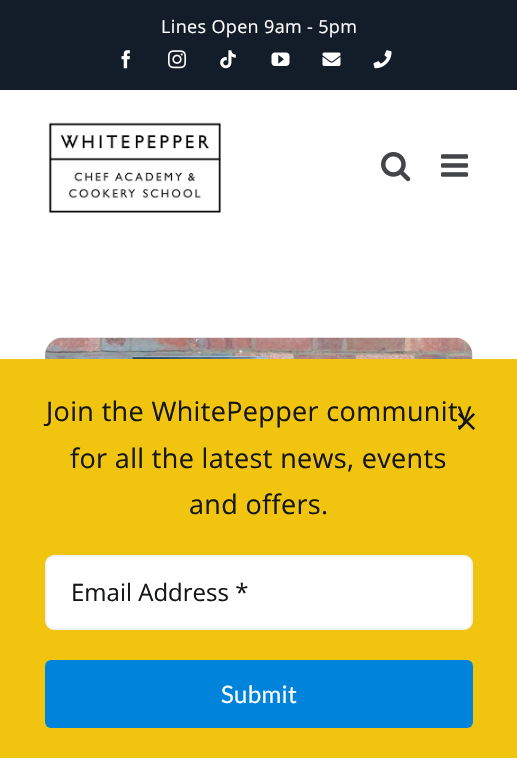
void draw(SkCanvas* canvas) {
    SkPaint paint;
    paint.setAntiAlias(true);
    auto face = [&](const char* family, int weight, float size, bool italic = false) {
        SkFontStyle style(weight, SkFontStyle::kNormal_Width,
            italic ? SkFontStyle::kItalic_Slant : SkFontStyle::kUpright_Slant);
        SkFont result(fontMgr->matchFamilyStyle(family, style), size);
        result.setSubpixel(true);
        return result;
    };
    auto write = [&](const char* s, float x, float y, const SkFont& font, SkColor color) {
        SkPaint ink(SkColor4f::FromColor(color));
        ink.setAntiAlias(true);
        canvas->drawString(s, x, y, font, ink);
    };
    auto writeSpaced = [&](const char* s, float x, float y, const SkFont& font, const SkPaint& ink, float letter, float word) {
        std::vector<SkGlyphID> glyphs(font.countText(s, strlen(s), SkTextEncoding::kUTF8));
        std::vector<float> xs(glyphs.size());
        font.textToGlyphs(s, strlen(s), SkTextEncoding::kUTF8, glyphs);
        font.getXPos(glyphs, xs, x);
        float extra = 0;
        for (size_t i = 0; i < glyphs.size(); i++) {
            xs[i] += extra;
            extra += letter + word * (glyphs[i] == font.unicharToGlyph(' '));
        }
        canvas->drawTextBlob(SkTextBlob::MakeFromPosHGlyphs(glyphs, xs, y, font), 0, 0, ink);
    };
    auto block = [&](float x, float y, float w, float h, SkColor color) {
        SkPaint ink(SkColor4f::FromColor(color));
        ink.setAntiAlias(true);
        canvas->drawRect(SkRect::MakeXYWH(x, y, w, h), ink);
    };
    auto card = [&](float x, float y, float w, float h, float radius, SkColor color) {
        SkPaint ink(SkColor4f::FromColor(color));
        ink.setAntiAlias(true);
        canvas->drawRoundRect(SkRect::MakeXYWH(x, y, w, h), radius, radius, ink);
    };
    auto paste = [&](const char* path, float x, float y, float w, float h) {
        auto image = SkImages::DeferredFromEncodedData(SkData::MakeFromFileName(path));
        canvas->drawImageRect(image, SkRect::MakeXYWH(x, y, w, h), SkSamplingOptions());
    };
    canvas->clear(SK_ColorWHITE);
    block(0, 0, 517, 90, SkColorSetRGB(18, 29, 41));
    auto kFont1 = face("Open Sans", 400, 18);
    paint.setColor(SK_ColorWHITE);
    writeSpaced("Lines Open 9am - 5pm", 161, 33, kFont1, paint, 0.35f, 0);
    paste("pic1.png", 121, 50, 9, 19);
    paste("pic2.png", 168, 50, 18, 19);
    paste("pic3.png", 220, 50, 16, 19);
    paste("pic4.png", 271, 52, 19, 14);
    paste("pic5.png", 322, 52, 19, 14);
    paste("pic6.png", 373, 50, 19, 19);
    paste("pic7.png", 48, 122, 173, 91);
    paste("pic8.png", 381, 152, 30, 30);
    paste("pic9.png", 441, 154, 27, 23);
    paste("pic10.png", 45, 337, 428, 22);
    block(0, 359, 517, 399, SkColorSetRGB(241, 196, 15));
    auto kFont2 = face("Open Sans", 400, 27);
    paint.setColor(SkColorSetRGB(20, 22, 23));
    writeSpaced("Join the WhitePepper community", 46, 421, kFont2, paint, 0.35f, 0);
    writeSpaced("for all the latest news, events", 70, 468, kFont2, paint, 0.35f, 0);
    writeSpaced("and offers.", 189, 514, kFont2, paint, 0.35f, 0);
    paint.setColor(SK_ColorWHITE);
    canvas->drawRoundRect(SkRect::MakeXYWH(46, 556, 426, 73), 8, 8, paint);
    paint.setStyle(SkPaint::kStroke_Style);
    paint.setStrokeWidth(2);
    paint.setColor(SkColorSetRGB(242, 243, 245));
    canvas->drawRoundRect(SkRect::MakeXYWH(46, 556, 426, 73), 8, 8, paint);
    auto kFont3 = face("Open Sans", 400, 24);
    write("Email Address *", 71, 601, kFont3, SkColorSetRGB(20, 22, 23));
    card(45, 660, 428, 68, 6, SkColorSetRGB(0, 131, 219));
    auto kFont4 = face("Lato", 400, 24);
    paint.setStyle(SkPaint::kFill_Style);
    paint.setColor(SK_ColorWHITE);
    writeSpaced("Submit", 221, 703, kFont4, paint, 0.35f, 0);
    paste("pic11.png", 458, 413, 17, 17);
}
